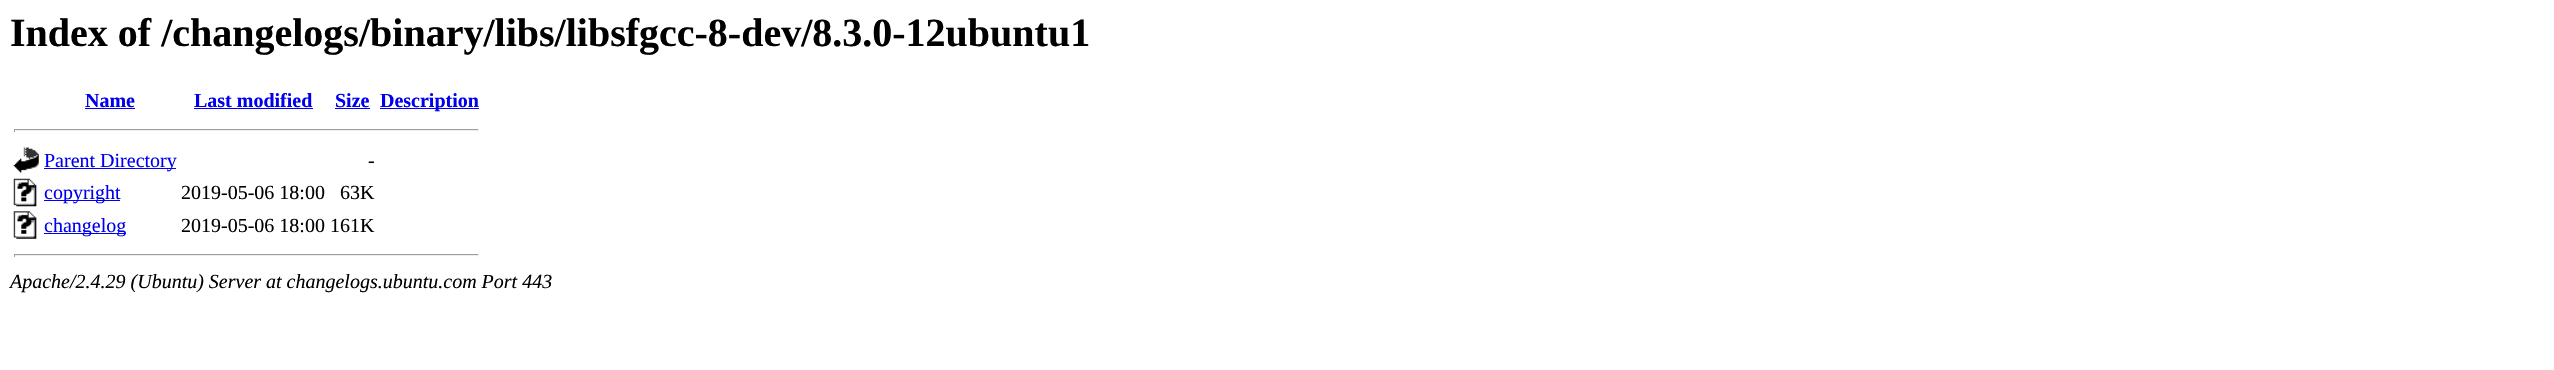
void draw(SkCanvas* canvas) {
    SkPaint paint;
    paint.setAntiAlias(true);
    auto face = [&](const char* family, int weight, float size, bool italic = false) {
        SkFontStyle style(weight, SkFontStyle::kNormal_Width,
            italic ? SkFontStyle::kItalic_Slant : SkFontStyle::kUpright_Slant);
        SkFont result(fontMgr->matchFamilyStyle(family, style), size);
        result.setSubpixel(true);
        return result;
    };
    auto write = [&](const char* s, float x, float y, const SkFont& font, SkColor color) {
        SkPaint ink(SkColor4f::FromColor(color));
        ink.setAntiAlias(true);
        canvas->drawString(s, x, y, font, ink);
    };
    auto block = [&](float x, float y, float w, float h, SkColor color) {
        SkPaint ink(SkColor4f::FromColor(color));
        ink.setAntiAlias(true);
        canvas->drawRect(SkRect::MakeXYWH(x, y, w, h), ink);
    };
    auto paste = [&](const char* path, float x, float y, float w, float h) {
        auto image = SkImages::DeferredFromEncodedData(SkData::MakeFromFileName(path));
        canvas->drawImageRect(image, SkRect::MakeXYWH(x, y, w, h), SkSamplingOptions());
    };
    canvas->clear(SK_ColorWHITE);
    auto kFont1 = face("Liberation Serif", 700, 40);
    write("Index of /changelogs/binary/libs/libsfgcc-8-dev/8.3.0-12ubuntu1", 10, 46, kFont1, SK_ColorBLACK);
    auto kFont2 = face("Liberation Serif", 700, 20);
    write("Name", 85, 107, kFont2, SkColorSetRGB(0, 0, 238));
    block(85, 108, 50, 1, SkColorSetRGB(0, 0, 238));
    write("Last modified", 194, 107, kFont2, SkColorSetRGB(0, 0, 238));
    block(194, 108, 119, 1, SkColorSetRGB(0, 0, 238));
    write("Size", 335, 107, kFont2, SkColorSetRGB(0, 0, 238));
    block(335, 108, 35, 1, SkColorSetRGB(0, 0, 238));
    block(380, 108, 99, 1, SkColorSetRGB(0, 0, 238));
    write("Description", 380, 107, kFont2, SkColorSetRGB(0, 0, 238));
    block(14, 129, 465, 1, SkColorSetRGB(159, 159, 159));
    block(478, 129, 1, 3, SkColorSetRGB(238, 238, 238));
    block(14, 130, 465, 1, SkColorSetRGB(238, 238, 238));
    block(14, 129, 1, 3, SkColorSetRGB(159, 159, 159));
    paste("pic1.png", 13, 147, 26, 26);
    block(44, 168, 132, 1, SkColorSetRGB(0, 0, 238));
    auto kFont3 = face("Liberation Serif", 400, 20);
    write("Parent Directory", 44, 167, kFont3, SkColorSetRGB(0, 0, 238));
    write("-", 368, 167, kFont3, SK_ColorBLACK);
    paste("pic2.png", 13, 178, 24, 29);
    block(44, 200, 76, 1, SkColorSetRGB(0, 0, 238));
    write("copyright", 44, 199, kFont3, SkColorSetRGB(0, 0, 238));
    write("2019-05-06 18:00", 181, 199, kFont3, SK_ColorBLACK);
    write("63K", 340, 199, kFont3, SK_ColorBLACK);
    paste("pic3.png", 13, 211, 24, 28);
    block(44, 233, 82, 1, SkColorSetRGB(0, 0, 238));
    write("changelog", 44, 232, kFont3, SkColorSetRGB(0, 0, 238));
    write("2019-05-06 18:00 161K", 181, 232, kFont3, SK_ColorBLACK);
    block(14, 254, 465, 1, SkColorSetRGB(159, 159, 159));
    block(478, 254, 1, 3, SkColorSetRGB(238, 238, 238));
    block(14, 255, 465, 1, SkColorSetRGB(238, 238, 238));
    block(14, 254, 1, 3, SkColorSetRGB(159, 159, 159));
    auto kFont4 = face("Liberation Serif", 400, 20, true);
    write("Apache/2.4.29 (Ubuntu) Server at changelogs.ubuntu.com Port 443", 10, 288, kFont4, SK_ColorBLACK);
}
